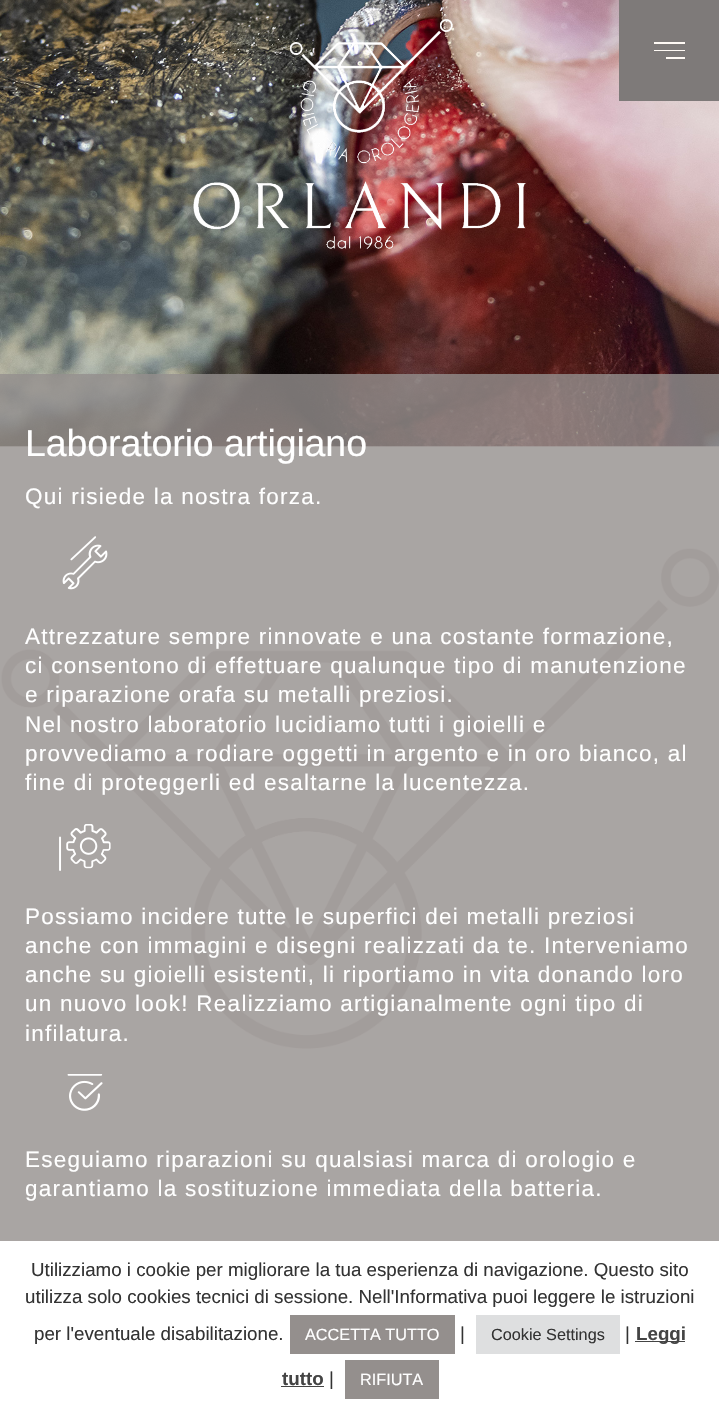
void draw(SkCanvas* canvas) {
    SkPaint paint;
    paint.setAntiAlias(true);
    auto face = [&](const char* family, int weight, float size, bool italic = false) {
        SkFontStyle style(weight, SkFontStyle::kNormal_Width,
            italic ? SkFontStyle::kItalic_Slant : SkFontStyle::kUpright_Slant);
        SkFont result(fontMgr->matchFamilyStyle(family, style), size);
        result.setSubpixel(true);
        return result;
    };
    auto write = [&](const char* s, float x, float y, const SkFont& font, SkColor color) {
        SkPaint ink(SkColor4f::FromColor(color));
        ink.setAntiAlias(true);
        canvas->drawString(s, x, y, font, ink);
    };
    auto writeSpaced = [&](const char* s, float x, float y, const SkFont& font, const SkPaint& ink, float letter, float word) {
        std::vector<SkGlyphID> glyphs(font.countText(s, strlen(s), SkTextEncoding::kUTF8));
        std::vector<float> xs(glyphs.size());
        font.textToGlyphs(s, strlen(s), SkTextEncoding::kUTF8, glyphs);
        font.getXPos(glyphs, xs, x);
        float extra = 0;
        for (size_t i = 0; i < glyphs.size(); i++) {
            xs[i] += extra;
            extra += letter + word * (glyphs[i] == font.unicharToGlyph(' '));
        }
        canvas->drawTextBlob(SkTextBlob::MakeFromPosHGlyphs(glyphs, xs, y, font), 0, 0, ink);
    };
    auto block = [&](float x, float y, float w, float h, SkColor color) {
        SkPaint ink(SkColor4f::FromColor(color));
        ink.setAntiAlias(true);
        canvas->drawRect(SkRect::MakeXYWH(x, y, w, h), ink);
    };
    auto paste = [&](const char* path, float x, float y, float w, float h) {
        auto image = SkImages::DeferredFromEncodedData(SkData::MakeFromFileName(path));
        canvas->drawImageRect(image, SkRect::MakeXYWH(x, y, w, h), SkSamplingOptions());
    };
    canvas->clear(SkColorSetRGB(255, 251, 246));
    paste("pic2.png", 0, 0, 719, 447);
    paste("pic1.png", 193, 19, 333, 230);
    block(619, 0, 100, 101, SkColorSetRGB(126, 122, 121));
    block(654, 42, 31, 2, SkColorSetRGB(255, 250, 245));
    block(654, 50, 31, 1, SkColorSetRGB(255, 250, 245));
    block(666, 57, 19, 2, SkColorSetRGB(255, 250, 245));
    paste("pic6.png", 1, 548, 718, 501);
    block(0, 374, 719, 867, SkColorSetARGB(204, 148, 143, 141));
    auto kFont1 = face("Liberation Sans", 400, 37.5f);
    paint.setColor(SK_ColorWHITE);
    writeSpaced("Laboratorio artigiano", 25, 456, kFont1, paint, -0.1f, 0);
    auto kFont2 = face("Liberation Sans", 400, 22.5f);
    writeSpaced("Qui risiede la nostra forza.", 25, 504, kFont2, paint, 1.25f, 0);
    paste("pic3.png", 62, 536, 46, 54);
    writeSpaced("Attrezzature sempre rinnovate e una costante formazione,", 25, 644, kFont2, paint, 1.25f, 0);
    writeSpaced("ci consentono di effettuare qualunque tipo di manutenzione", 25, 673, kFont2, paint, 1.25f, 0);
    writeSpaced("e riparazione orafa su metalli preziosi.", 25, 702, kFont2, paint, 1.25f, 0);
    writeSpaced("Nel nostro laboratorio lucidiamo tutti i gioielli e", 25, 732, kFont2, paint, 1.25f, 0);
    writeSpaced("provvediamo a rodiare oggetti in argento e in oro bianco, al", 25, 761, kFont2, paint, 1.25f, 0);
    writeSpaced("fine di proteggerli ed esaltarne la lucentezza.", 25, 790, kFont2, paint, 1.25f, 0);
    paste("pic4.png", 59, 824, 52, 47);
    writeSpaced("Possiamo incidere tutte le superfici dei metalli preziosi", 25, 924, kFont2, paint, 1.25f, 0);
    writeSpaced("anche con immagini e disegni realizzati da te. Interveniamo", 25, 953, kFont2, paint, 1.25f, 0);
    writeSpaced("anche su gioielli esistenti, li riportiamo in vita donando loro", 25, 982, kFont2, paint, 1.25f, 0);
    writeSpaced("un nuovo look! Realizziamo artigianalmente ogni tipo di", 25, 1011, kFont2, paint, 1.25f, 0);
    writeSpaced("infilatura.", 25, 1041, kFont2, paint, 1.25f, 0);
    paste("pic5.png", 67, 1074, 36, 37);
    writeSpaced("Eseguiamo riparazioni su qualsiasi marca di orologio e", 25, 1167, kFont2, paint, 1.25f, 0);
    writeSpaced("garantiamo la sostituzione immediata della batteria.", 25, 1196, kFont2, paint, 1.25f, 0);
    block(0, 1241, 719, 172, SK_ColorWHITE);
    auto kFont3 = face("Liberation Sans", 400, 18.75f);
    write("Utilizziamo i cookie per migliorare la tua esperienza di navigazione. Questo sito", 31, 1276, kFont3, SkColorSetRGB(51, 51, 51));
    write("utilizza solo cookies tecnici di sessione. Nell'Informativa puoi leggere le istruzioni", 25, 1303, kFont3, SkColorSetRGB(51, 51, 51));
    write("per l'eventuale disabilitazione.", 34, 1340, kFont3, SkColorSetRGB(51, 51, 51));
    block(290, 1315, 165, 39, SkColorSetRGB(148, 143, 141));
    auto kFont4 = face("Liberation Sans", 400, 16.25f);
    write("ACCETTA TUTTO", 305, 1340, kFont4, SK_ColorWHITE);
    write("|", 460, 1340, kFont3, SkColorSetRGB(51, 51, 51));
    block(476, 1315, 144, 39, SkColorSetRGB(222, 223, 224));
    write("Cookie Settings", 491, 1340, kFont4, SkColorSetRGB(51, 51, 51));
    write("|", 625, 1340, kFont3, SkColorSetRGB(51, 51, 51));
    block(635, 1341, 50, 1, SkColorSetRGB(68, 68, 68));
    auto kFont5 = face("Liberation Sans", 700, 18.75f);
    write("Leggi", 636, 1340, kFont5, SkColorSetRGB(68, 68, 68));
    write("tutto", 282, 1385, kFont5, SkColorSetRGB(68, 68, 68));
    block(281, 1386, 43, 1, SkColorSetRGB(68, 68, 68));
    write("|", 329, 1385, kFont3, SkColorSetRGB(51, 51, 51));
    block(345, 1360, 94, 39, SkColorSetRGB(148, 143, 141));
    write("RIFIUTA", 360, 1385, kFont4, SK_ColorWHITE);
}
